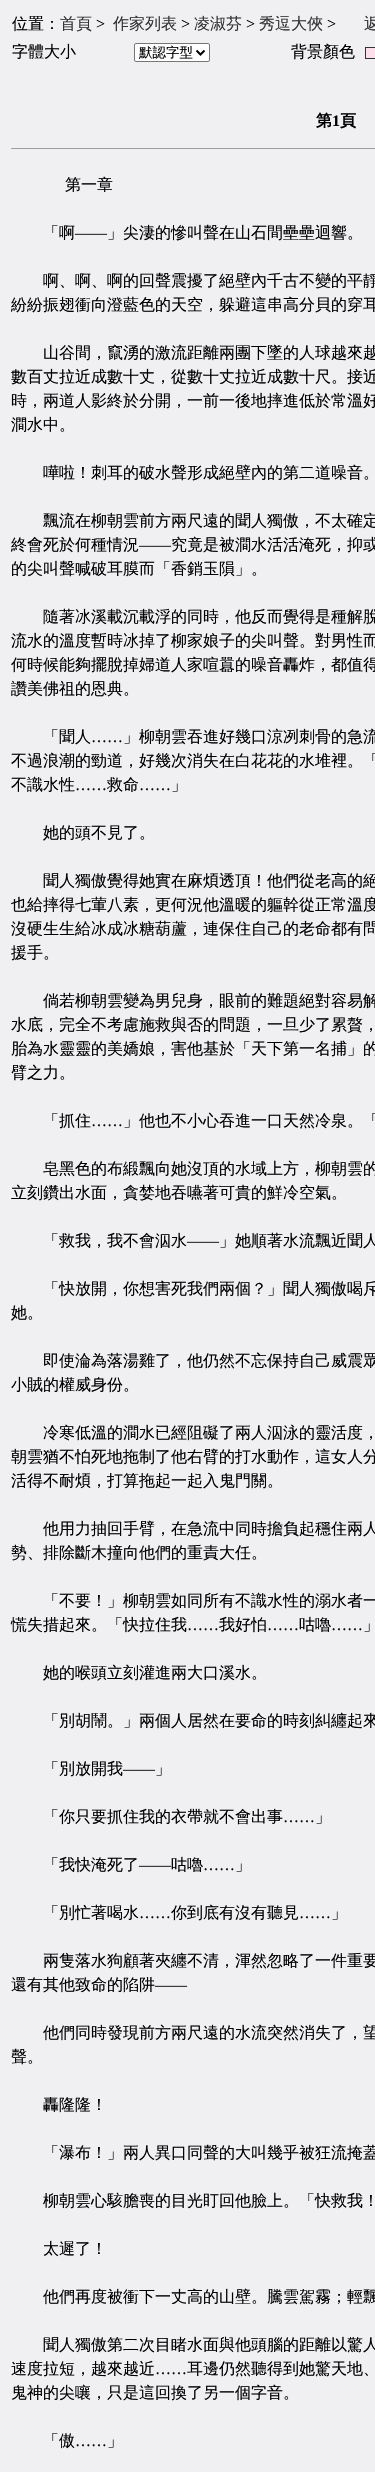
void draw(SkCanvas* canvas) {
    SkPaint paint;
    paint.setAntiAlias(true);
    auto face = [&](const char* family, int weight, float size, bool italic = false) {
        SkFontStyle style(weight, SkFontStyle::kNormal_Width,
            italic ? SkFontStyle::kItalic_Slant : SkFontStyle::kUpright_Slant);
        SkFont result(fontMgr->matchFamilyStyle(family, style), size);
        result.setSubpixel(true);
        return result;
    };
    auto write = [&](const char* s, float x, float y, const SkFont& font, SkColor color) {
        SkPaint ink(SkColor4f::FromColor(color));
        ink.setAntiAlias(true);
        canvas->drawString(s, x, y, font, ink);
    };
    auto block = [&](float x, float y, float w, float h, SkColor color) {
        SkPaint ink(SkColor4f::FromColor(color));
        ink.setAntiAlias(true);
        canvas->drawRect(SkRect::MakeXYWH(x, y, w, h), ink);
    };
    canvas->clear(SkColorSetRGB(240, 240, 243));
    auto kFont1 = face("WenQuanYi Zen Hei", 500, 16);
    write("位置：", 12, 29, kFont1, SK_ColorBLACK);
    write("首頁", 60, 29, kFont1, SkColorSetRGB(51, 51, 51));
    auto kFont2 = face("Liberation Serif", 400, 16);
    write(">", 96, 29, kFont2, SK_ColorBLACK);
    write("作家列表", 113, 29, kFont1, SkColorSetRGB(51, 51, 51));
    write(">", 181, 29, kFont2, SK_ColorBLACK);
    write("凌淑芬", 194, 29, kFont1, SkColorSetRGB(51, 51, 51));
    write(">", 246, 29, kFont2, SK_ColorBLACK);
    write("秀逗大俠", 259, 29, kFont1, SkColorSetRGB(51, 51, 51));
    write(">", 327, 29, kFont2, SK_ColorBLACK);
    write("返", 364, 29, kFont1, SkColorSetRGB(51, 51, 51));
    write("字體大小", 12, 57, kFont1, SK_ColorBLACK);
    paint.setColor(SK_ColorWHITE);
    canvas->drawRoundRect(SkRect::MakeXYWH(134.5f, 43.5f, 75, 18), 1.5f, 1.5f, paint);
    paint.setStyle(SkPaint::kStroke_Style);
    paint.setStrokeWidth(1);
    paint.setColor(SkColorSetRGB(118, 118, 118));
    canvas->drawRoundRect(SkRect::MakeXYWH(134.5f, 43.5f, 75, 18), 1.5f, 1.5f, paint);
    paint.setStrokeWidth(2);
    paint.setColor(SK_ColorBLACK);
    canvas->drawPath(SkPathBuilder().moveTo(196.5f, 50.5f).lineTo(200.5f, 54.5f).lineTo(204.5f, 50.5f).detach(), paint);
    auto kFont3 = face("WenQuanYi Zen Hei", 500, 13.5f);
    write("默認字型", 139, 57, kFont3, SK_ColorBLACK);
    write("背景顏色", 291, 57, kFont1, SK_ColorBLACK);
    paint.setStyle(SkPaint::kFill_Style);
    paint.setColor(SkColorSetRGB(253, 223, 235));
    canvas->drawRect(SkRect::MakeXYWH(365.5f, 47.5f, 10, 11), paint);
    paint.setStyle(SkPaint::kStroke_Style);
    paint.setStrokeWidth(1);
    paint.setColor(SkColorSetRGB(51, 51, 51));
    canvas->drawRect(SkRect::MakeXYWH(365.5f, 47.5f, 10, 11), paint);
    auto kFont4 = face("WenQuanYi Zen Hei", 700, 16);
    write("第", 316, 126, kFont4, SK_ColorBLACK);
    auto kFont5 = face("Liberation Serif", 700, 16);
    write("1", 332, 126, kFont5, SK_ColorBLACK);
    write("頁", 340, 126, kFont4, SK_ColorBLACK);
    block(11, 148, 364, 1, SkColorSetRGB(159, 159, 159));
    write("第一章", 65, 190, kFont1, SK_ColorBLACK);
    write("「啊", 43, 238, kFont1, SK_ColorBLACK);
    write("——", 75, 238, kFont2, SK_ColorBLACK);
    write("」尖淒的慘叫聲在山石間壘壘迴響。", 107, 238, kFont1, SK_ColorBLACK);
    write("啊、啊、啊的回聲震擾了絕壁內千古不變的平靜", 43, 286, kFont1, SK_ColorBLACK);
    write("紛紛振翅衝向澄藍色的天空，躲避這串高分貝的穿耳", 11, 310, kFont1, SK_ColorBLACK);
    write("山谷間，竄湧的激流距離兩團下墜的人球越來越", 43, 358, kFont1, SK_ColorBLACK);
    write("數百丈拉近成數十丈，從數十丈拉近成數十尺。接近", 11, 382, kFont1, SK_ColorBLACK);
    write("時，兩道人影終於分開，一前一後地摔進低於常溫好", 11, 406, kFont1, SK_ColorBLACK);
    write("澗水中。", 11, 430, kFont1, SK_ColorBLACK);
    write("嘩啦！刺耳的破水聲形成絕壁內的第二道噪音。", 43, 478, kFont1, SK_ColorBLACK);
    write("飄流在柳朝雲前方兩尺遠的聞人獨傲，不太確定", 43, 526, kFont1, SK_ColorBLACK);
    write("終會死於何種情況", 11, 550, kFont1, SK_ColorBLACK);
    write("——", 139, 550, kFont2, SK_ColorBLACK);
    write("究竟是被澗水活活淹死，抑或", 171, 550, kFont1, SK_ColorBLACK);
    write("的尖叫聲喊破耳膜而「香銷玉隕」。", 11, 574, kFont1, SK_ColorBLACK);
    write("隨著冰溪載沉載浮的同時，他反而覺得是種解脫", 43, 622, kFont1, SK_ColorBLACK);
    write("流水的溫度暫時冰掉了柳家娘子的尖叫聲。對男性而", 11, 646, kFont1, SK_ColorBLACK);
    write("何時候能夠擺脫掉婦道人家喧囂的噪音轟炸，都值得", 11, 670, kFont1, SK_ColorBLACK);
    write("讚美佛祖的恩典。", 11, 694, kFont1, SK_ColorBLACK);
    write("「聞人", 43, 742, kFont1, SK_ColorBLACK);
    write("……", 91, 742, kFont2, SK_ColorBLACK);
    write("」柳朝雲吞進好幾口涼冽刺骨的急流", 123, 742, kFont1, SK_ColorBLACK);
    write("不過浪潮的勁道，好幾次消失在白花花的水堆裡。「", 11, 766, kFont1, SK_ColorBLACK);
    write("不識水性", 11, 790, kFont1, SK_ColorBLACK);
    write("……", 75, 790, kFont2, SK_ColorBLACK);
    write("救命", 107, 790, kFont1, SK_ColorBLACK);
    write("……", 139, 790, kFont2, SK_ColorBLACK);
    write("」", 171, 790, kFont1, SK_ColorBLACK);
    write("她的頭不見了。", 43, 838, kFont1, SK_ColorBLACK);
    write("聞人獨傲覺得她實在麻煩透頂！他們從老高的絕", 43, 886, kFont1, SK_ColorBLACK);
    write("也給摔得七葷八素，更何況他溫暖的軀幹從正常溫度", 11, 910, kFont1, SK_ColorBLACK);
    write("沒硬生生給冰成冰糖葫蘆，連保住自己的老命都有問", 11, 934, kFont1, SK_ColorBLACK);
    write("援手。", 11, 958, kFont1, SK_ColorBLACK);
    write("倘若柳朝雲變為男兒身，眼前的難題絕對容易解", 43, 1006, kFont1, SK_ColorBLACK);
    write("水底，完全不考慮施救與否的問題，一旦少了累贅，", 11, 1030, kFont1, SK_ColorBLACK);
    write("胎為水靈靈的美嬌娘，害他基於「天下第一名捕」的", 11, 1054, kFont1, SK_ColorBLACK);
    write("臂之力。", 11, 1078, kFont1, SK_ColorBLACK);
    write("「抓住", 43, 1126, kFont1, SK_ColorBLACK);
    write("……", 91, 1126, kFont2, SK_ColorBLACK);
    write("」他也不小心吞進一口天然冷泉。「", 123, 1126, kFont1, SK_ColorBLACK);
    write("皂黑色的布緞飄向她沒頂的水域上方，柳朝雲的", 43, 1174, kFont1, SK_ColorBLACK);
    write("立刻鑽出水面，貪婪地吞嚥著可貴的鮮冷空氣。", 11, 1198, kFont1, SK_ColorBLACK);
    write("「救我，我不會泅水", 43, 1246, kFont1, SK_ColorBLACK);
    write("——", 187, 1246, kFont2, SK_ColorBLACK);
    write("」她順著水流飄近聞人", 219, 1246, kFont1, SK_ColorBLACK);
    write("「快放開，你想害死我們兩個？」聞人獨傲喝斥", 43, 1294, kFont1, SK_ColorBLACK);
    write("她。", 11, 1318, kFont1, SK_ColorBLACK);
    write("即使淪為落湯雞了，他仍然不忘保持自己威震眾", 43, 1366, kFont1, SK_ColorBLACK);
    write("小賊的權威身份。", 11, 1390, kFont1, SK_ColorBLACK);
    write("冷寒低溫的澗水已經阻礙了兩人泅泳的靈活度，", 43, 1438, kFont1, SK_ColorBLACK);
    write("朝雲猶不怕死地拖制了他右臂的打水動作，這女人分", 11, 1462, kFont1, SK_ColorBLACK);
    write("活得不耐煩，打算拖起一起入鬼門關。", 11, 1486, kFont1, SK_ColorBLACK);
    write("他用力抽回手臂，在急流中同時擔負起穩住兩人", 43, 1534, kFont1, SK_ColorBLACK);
    write("勢、排除斷木撞向他們的重責大任。", 11, 1558, kFont1, SK_ColorBLACK);
    write("「不要！」柳朝雲如同所有不識水性的溺水者一", 43, 1606, kFont1, SK_ColorBLACK);
    write("慌失措起來。「快拉住我", 11, 1630, kFont1, SK_ColorBLACK);
    write("……", 187, 1630, kFont2, SK_ColorBLACK);
    write("我好怕", 219, 1630, kFont1, SK_ColorBLACK);
    write("……", 267, 1630, kFont2, SK_ColorBLACK);
    write("咕嚕", 299, 1630, kFont1, SK_ColorBLACK);
    write("……", 331, 1630, kFont2, SK_ColorBLACK);
    write("」", 363, 1630, kFont1, SK_ColorBLACK);
    write("她的喉頭立刻灌進兩大口溪水。", 43, 1678, kFont1, SK_ColorBLACK);
    write("「別胡鬧。」兩個人居然在要命的時刻糾纏起來", 43, 1726, kFont1, SK_ColorBLACK);
    write("「別放開我", 43, 1774, kFont1, SK_ColorBLACK);
    write("——", 123, 1774, kFont2, SK_ColorBLACK);
    write("」", 155, 1774, kFont1, SK_ColorBLACK);
    write("「你只要抓住我的衣帶就不會出事", 43, 1822, kFont1, SK_ColorBLACK);
    write("……", 283, 1822, kFont2, SK_ColorBLACK);
    write("」", 315, 1822, kFont1, SK_ColorBLACK);
    write("「我快淹死了", 43, 1870, kFont1, SK_ColorBLACK);
    write("——", 139, 1870, kFont2, SK_ColorBLACK);
    write("咕嚕", 171, 1870, kFont1, SK_ColorBLACK);
    write("」", 235, 1870, kFont1, SK_ColorBLACK);
    write("……", 203, 1870, kFont2, SK_ColorBLACK);
    write("「別忙著喝水", 43, 1918, kFont1, SK_ColorBLACK);
    write("……", 139, 1918, kFont2, SK_ColorBLACK);
    write("你到底有沒有聽見", 171, 1918, kFont1, SK_ColorBLACK);
    write("……", 299, 1918, kFont2, SK_ColorBLACK);
    write("」", 331, 1918, kFont1, SK_ColorBLACK);
    write("兩隻落水狗顧著夾纏不清，渾然忽略了一件重要", 43, 1966, kFont1, SK_ColorBLACK);
    write("還有其他致命的陷阱", 11, 1990, kFont1, SK_ColorBLACK);
    write("——", 155, 1990, kFont2, SK_ColorBLACK);
    write("他們同時發現前方兩尺遠的水流突然消失了，望", 43, 2038, kFont1, SK_ColorBLACK);
    write("聲。", 11, 2062, kFont1, SK_ColorBLACK);
    write("轟隆隆！", 43, 2110, kFont1, SK_ColorBLACK);
    write("「瀑布！」兩人異口同聲的大叫幾乎被狂流掩蓋", 43, 2158, kFont1, SK_ColorBLACK);
    write("柳朝雲心駭膽喪的目光盯回他臉上。「快救我！", 43, 2206, kFont1, SK_ColorBLACK);
    write("太遲了！", 43, 2254, kFont1, SK_ColorBLACK);
    write("他們再度被衝下一丈高的山壁。騰雲駕霧；輕飄", 43, 2302, kFont1, SK_ColorBLACK);
    write("聞人獨傲第二次目睹水面與他頭腦的距離以驚人", 43, 2350, kFont1, SK_ColorBLACK);
    write("速度拉短，越來越近", 11, 2374, kFont1, SK_ColorBLACK);
    write("……", 155, 2374, kFont2, SK_ColorBLACK);
    write("耳邊仍然聽得到她驚天地、", 187, 2374, kFont1, SK_ColorBLACK);
    write("鬼神的尖嚷，只是這回換了另一個字音。", 11, 2398, kFont1, SK_ColorBLACK);
    write("「傲", 43, 2446, kFont1, SK_ColorBLACK);
    write("……", 75, 2446, kFont2, SK_ColorBLACK);
    write("」", 107, 2446, kFont1, SK_ColorBLACK);
}
